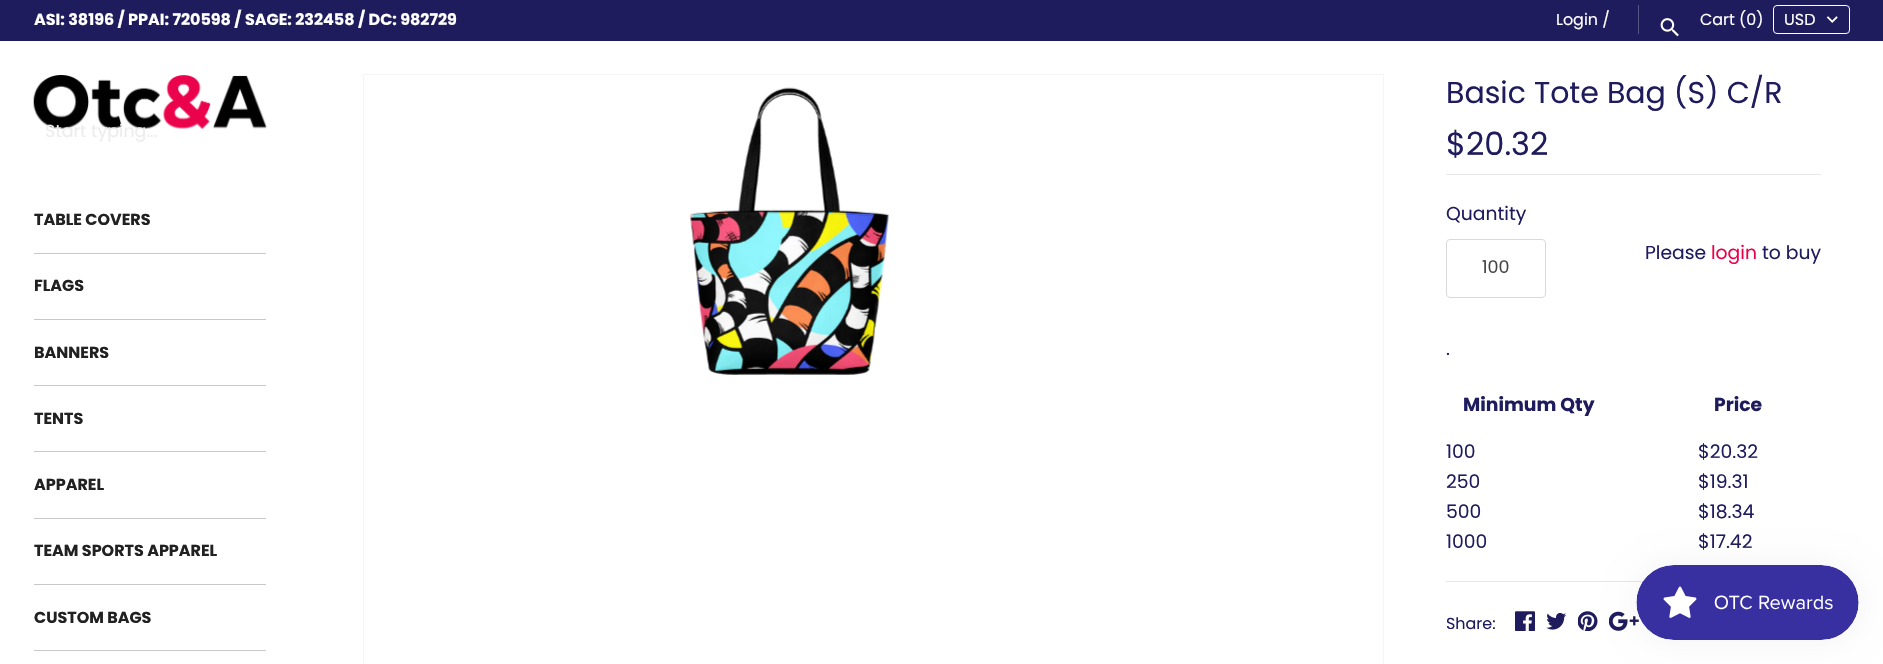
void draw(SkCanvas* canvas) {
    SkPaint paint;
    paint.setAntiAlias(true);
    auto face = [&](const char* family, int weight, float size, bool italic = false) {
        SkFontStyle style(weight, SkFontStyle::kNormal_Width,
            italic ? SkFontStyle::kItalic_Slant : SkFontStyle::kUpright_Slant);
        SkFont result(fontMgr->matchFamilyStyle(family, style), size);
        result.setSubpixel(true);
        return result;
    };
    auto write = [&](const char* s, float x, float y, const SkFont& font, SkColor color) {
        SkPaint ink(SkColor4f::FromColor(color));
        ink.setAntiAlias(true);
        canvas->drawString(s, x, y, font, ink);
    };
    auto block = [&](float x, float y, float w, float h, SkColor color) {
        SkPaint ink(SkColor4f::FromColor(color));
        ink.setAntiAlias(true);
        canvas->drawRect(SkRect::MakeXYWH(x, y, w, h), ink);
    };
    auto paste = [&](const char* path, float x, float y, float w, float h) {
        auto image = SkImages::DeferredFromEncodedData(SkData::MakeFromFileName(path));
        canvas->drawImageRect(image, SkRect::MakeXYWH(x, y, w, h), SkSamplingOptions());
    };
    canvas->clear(SK_ColorWHITE);
    block(0, 0, 1883, 41, SkColorSetRGB(31, 28, 93));
    auto kFont1 = face("Poppins", 700, 15.95f);
    write("ASI: 38196 / PPAI: 720598 / SAGE: 232458 / DC: 982729", 34, 25, kFont1, SK_ColorWHITE);
    auto kFont2 = face("Poppins", 400, 15.95f);
    write("Login /", 1556, 25, kFont2, SK_ColorWHITE);
    block(1638, 5, 1, 29, SkColorSetRGB(87, 85, 134));
    paste("pic1.png", 1660, 18, 19, 19);
    write("Cart (0)", 1700, 25, kFont2, SK_ColorWHITE);
    paste("pic2.png", 1826, 16, 12, 7);
    paint.setStyle(SkPaint::kStroke_Style);
    paint.setStrokeWidth(1);
    paint.setColor(SK_ColorWHITE);
    canvas->drawRoundRect(SkRect::MakeXYWH(1773.5f, 5.5f, 76, 28), 3.5f, 3.5f, paint);
    write("USD", 1784, 25, kFont2, SK_ColorWHITE);
    paste("pic3.png", 33, 75, 234, 54);
    auto kFont3 = face("Poppins", 400, 17.5f);
    write("Start typing...", 45, 137, kFont3, SkColorSetRGB(237, 237, 237));
    block(34, 253, 232, 1, SkColorSetRGB(200, 200, 200));
    write("TABLE COVERS", 34, 225, kFont1, SkColorSetRGB(33, 33, 33));
    block(34, 319, 232, 1, SkColorSetRGB(200, 200, 200));
    write("FLAGS", 34, 291, kFont1, SkColorSetRGB(33, 33, 33));
    block(34, 385, 232, 1, SkColorSetRGB(200, 200, 200));
    write("BANNERS", 34, 358, kFont1, SkColorSetRGB(33, 33, 33));
    block(34, 451, 232, 1, SkColorSetRGB(200, 200, 200));
    write("TENTS", 34, 424, kFont1, SkColorSetRGB(33, 33, 33));
    block(34, 518, 232, 1, SkColorSetRGB(200, 200, 200));
    write("APPAREL", 34, 490, kFont1, SkColorSetRGB(33, 33, 33));
    block(34, 584, 232, 1, SkColorSetRGB(200, 200, 200));
    write("TEAM SPORTS APPAREL", 34, 556, kFont1, SkColorSetRGB(33, 33, 33));
    block(34, 650, 232, 1, SkColorSetRGB(200, 200, 200));
    write("CUSTOM BAGS", 34, 623, kFont1, SkColorSetRGB(33, 33, 33));
    paint.setColor(SkColorSetRGB(245, 245, 245));
    canvas->drawRect(SkRect::MakeXYWH(363.5f, 74.5f, 1020, 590), paint);
    paste("pic4.png", 689, 87, 200, 288);
    auto kFont4 = face("Poppins", 400, 30);
    write("Basic Tote Bag (S) C/R", 1446, 103, kFont4, SkColorSetRGB(31, 28, 93));
    auto kFont5 = face("Poppins", 400, 32);
    write("$20.32", 1446, 155, kFont5, SkColorSetRGB(31, 28, 93));
    block(1446, 174, 375, 1, SkColorSetRGB(231, 231, 231));
    auto kFont6 = face("Poppins", 400, 18.75f);
    write("Quantity", 1446, 220, kFont6, SkColorSetRGB(31, 28, 93));
    write("Please", 1645, 259, kFont6, SkColorSetRGB(31, 28, 93));
    write("login", 1711, 259, kFont6, SkColorSetRGB(235, 2, 76));
    write("to buy", 1762, 259, kFont6, SkColorSetRGB(31, 28, 93));
    paint.setColor(SkColorSetRGB(217, 217, 217));
    canvas->drawRoundRect(SkRect::MakeXYWH(1446.5f, 239.5f, 99, 58), 3.5f, 3.5f, paint);
    write("100", 1482, 273, kFont3, SkColorSetRGB(68, 68, 68));
    write(".", 1446, 355, kFont6, SkColorSetRGB(31, 28, 93));
    auto kFont7 = face("Poppins", 700, 18.75f);
    write("Minimum Qty", 1463, 411, kFont7, SkColorSetRGB(31, 28, 93));
    write("Price", 1714, 411, kFont7, SkColorSetRGB(31, 28, 93));
    write("100", 1446, 458, kFont6, SkColorSetRGB(31, 28, 93));
    write("$20.32", 1698, 458, kFont6, SkColorSetRGB(31, 28, 93));
    write("250", 1446, 488, kFont6, SkColorSetRGB(31, 28, 93));
    write("$19.31", 1698, 488, kFont6, SkColorSetRGB(31, 28, 93));
    write("500", 1446, 518, kFont6, SkColorSetRGB(31, 28, 93));
    write("$18.34", 1698, 518, kFont6, SkColorSetRGB(31, 28, 93));
    write("1000", 1446, 548, kFont6, SkColorSetRGB(31, 28, 93));
    write("$17.42", 1698, 548, kFont6, SkColorSetRGB(31, 28, 93));
    block(1446, 581, 198, 1, SkColorSetRGB(231, 231, 231));
    write("Share:", 1446, 629, kFont2, SkColorSetRGB(31, 28, 93));
    paste("pic5.png", 1515, 611, 20, 20);
    paste("pic6.png", 1546, 612, 20, 18);
    paste("pic7.png", 1578, 611, 20, 20);
    paste("pic8.png", 1609, 611, 30, 20);
    paint.setStyle(SkPaint::kFill_Style);
    paint.setColor(SkColorSetARGB(13, 0, 0, 0));
    paint.setMaskFilter(SkMaskFilter::MakeBlur(kNormal_SkBlurStyle, 15.5f));
    canvas->drawRoundRect(SkRect::MakeXYWH(1636, 565, 223, 75), 37.5f, 37.5f, paint);
    paint.setMaskFilter(nullptr);
    paste("pic9.png", 1636, 565, 223, 75);
}
